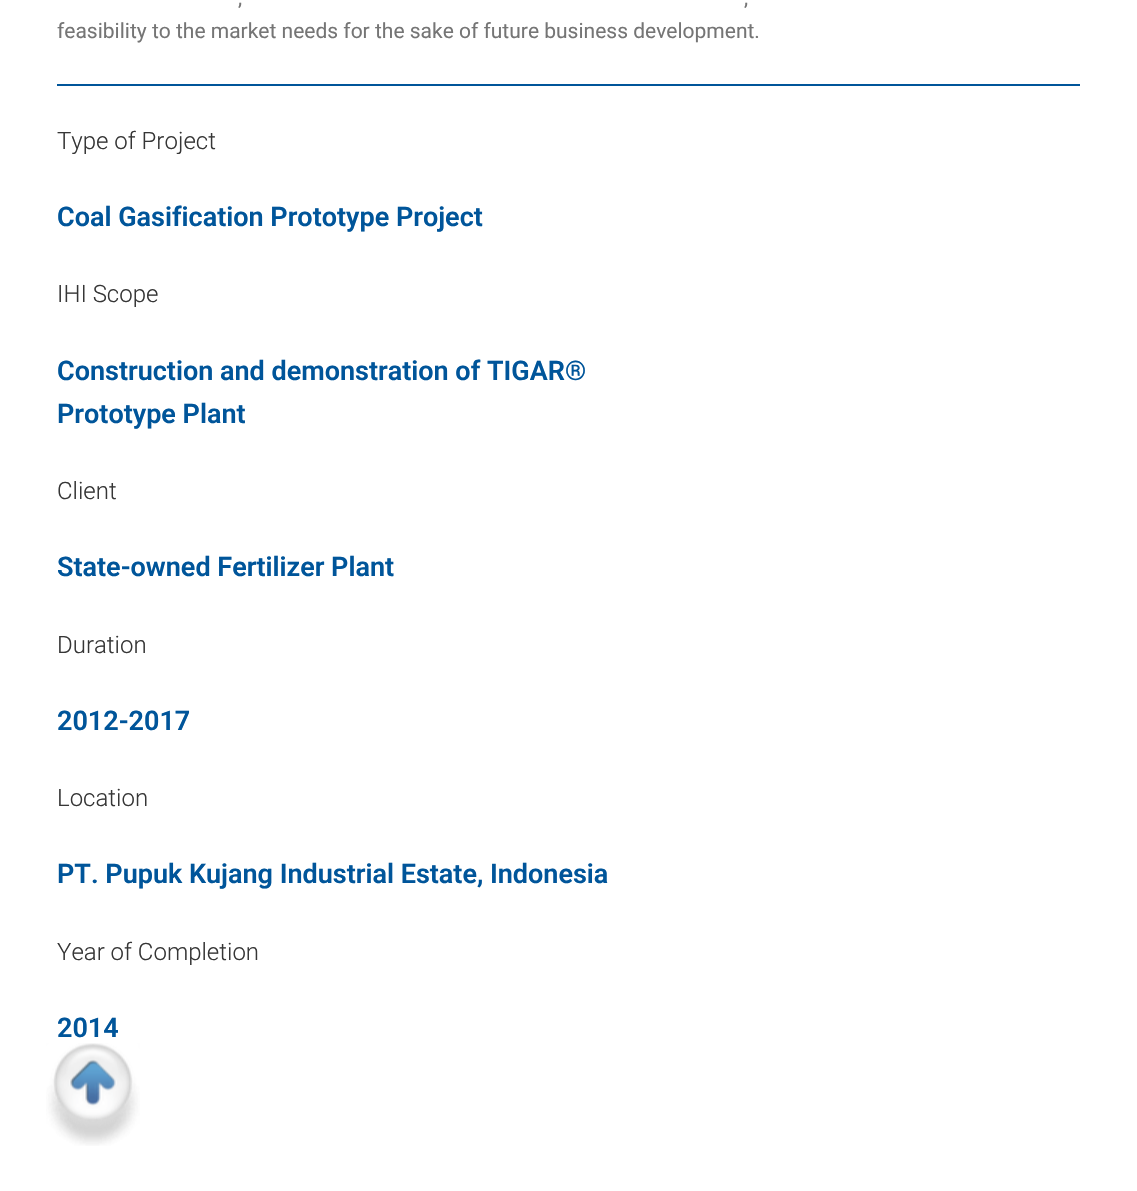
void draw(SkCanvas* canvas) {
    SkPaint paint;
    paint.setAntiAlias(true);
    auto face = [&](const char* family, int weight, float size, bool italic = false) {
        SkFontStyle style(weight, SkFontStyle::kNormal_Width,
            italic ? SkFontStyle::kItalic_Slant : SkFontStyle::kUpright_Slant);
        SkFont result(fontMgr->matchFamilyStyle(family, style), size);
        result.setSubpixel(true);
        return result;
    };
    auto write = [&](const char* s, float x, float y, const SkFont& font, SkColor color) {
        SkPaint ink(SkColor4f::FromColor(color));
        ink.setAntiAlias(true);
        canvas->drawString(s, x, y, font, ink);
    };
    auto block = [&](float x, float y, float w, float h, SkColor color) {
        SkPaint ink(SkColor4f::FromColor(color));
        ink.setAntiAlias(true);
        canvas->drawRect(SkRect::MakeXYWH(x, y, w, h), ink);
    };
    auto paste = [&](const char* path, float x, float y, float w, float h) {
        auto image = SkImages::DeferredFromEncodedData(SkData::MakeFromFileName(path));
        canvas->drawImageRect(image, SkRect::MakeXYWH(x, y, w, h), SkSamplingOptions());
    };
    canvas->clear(SK_ColorWHITE);
    auto kFont1 = face("Roboto", 400, 21);
    write(",", 238, 5, kFont1, SkColorSetRGB(117, 117, 117));
    write(",", 744, 5, kFont1, SkColorSetRGB(117, 117, 117));
    write("feasibility to the market needs for the sake of future business development.", 57, 38, kFont1, SkColorSetRGB(117, 117, 117));
    block(57, 84, 1023, 2, SkColorSetRGB(0, 85, 154));
    auto kFont2 = face("Roboto", 300, 24);
    write("Type of Project", 57, 149, kFont2, SkColorSetRGB(54, 54, 54));
    auto kFont3 = face("Roboto", 600, 27);
    write("Coal Gasification Prototype Project", 57, 226, kFont3, SkColorSetRGB(0, 85, 154));
    write("IHI Scope", 57, 302, kFont2, SkColorSetRGB(54, 54, 54));
    write("Construction and demonstration of TIGAR®", 57, 380, kFont3, SkColorSetRGB(0, 85, 154));
    write("Prototype Plant", 57, 423, kFont3, SkColorSetRGB(0, 85, 154));
    write("Client", 57, 499, kFont2, SkColorSetRGB(54, 54, 54));
    write("State-owned Fertilizer Plant", 57, 576, kFont3, SkColorSetRGB(0, 85, 154));
    write("Duration", 57, 653, kFont2, SkColorSetRGB(54, 54, 54));
    write("2012-2017", 57, 730, kFont3, SkColorSetRGB(0, 85, 154));
    write("Location", 57, 806, kFont2, SkColorSetRGB(54, 54, 54));
    write("PT. Pupuk Kujang Industrial Estate, Indonesia", 57, 883, kFont3, SkColorSetRGB(0, 85, 154));
    write("Year of Completion", 57, 960, kFont2, SkColorSetRGB(54, 54, 54));
    write("2014", 57, 1037, kFont3, SkColorSetRGB(0, 85, 154));
    paste("pic1.png", 46, 1043, 94, 103);
}
